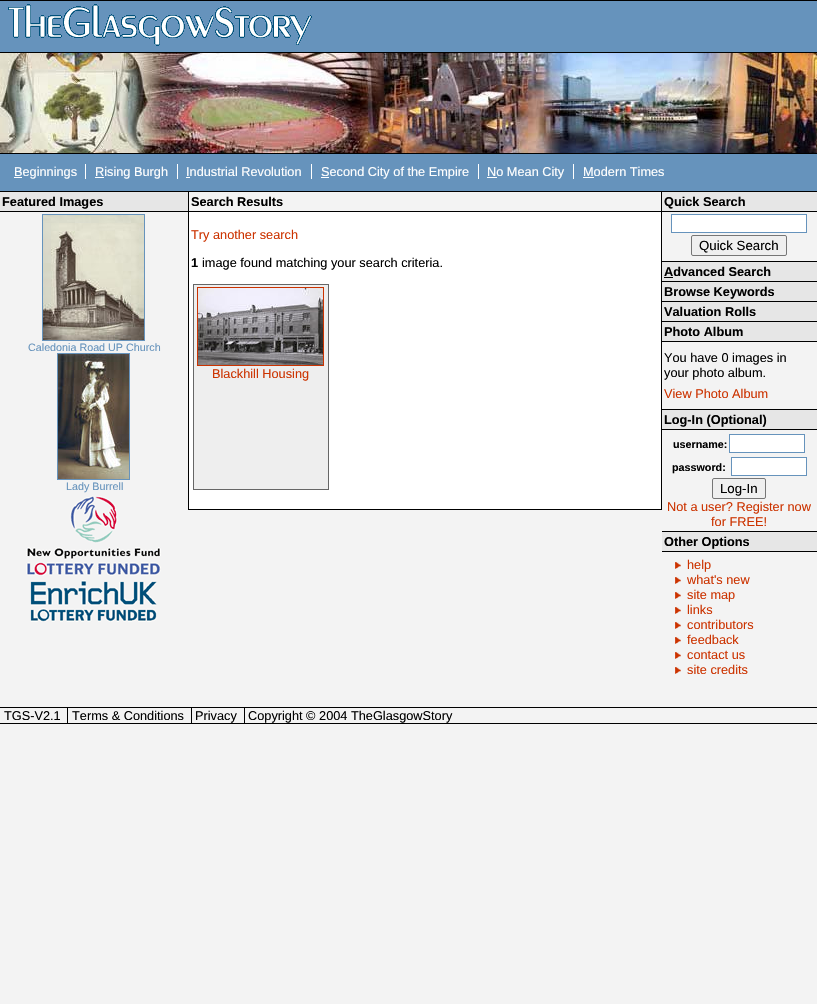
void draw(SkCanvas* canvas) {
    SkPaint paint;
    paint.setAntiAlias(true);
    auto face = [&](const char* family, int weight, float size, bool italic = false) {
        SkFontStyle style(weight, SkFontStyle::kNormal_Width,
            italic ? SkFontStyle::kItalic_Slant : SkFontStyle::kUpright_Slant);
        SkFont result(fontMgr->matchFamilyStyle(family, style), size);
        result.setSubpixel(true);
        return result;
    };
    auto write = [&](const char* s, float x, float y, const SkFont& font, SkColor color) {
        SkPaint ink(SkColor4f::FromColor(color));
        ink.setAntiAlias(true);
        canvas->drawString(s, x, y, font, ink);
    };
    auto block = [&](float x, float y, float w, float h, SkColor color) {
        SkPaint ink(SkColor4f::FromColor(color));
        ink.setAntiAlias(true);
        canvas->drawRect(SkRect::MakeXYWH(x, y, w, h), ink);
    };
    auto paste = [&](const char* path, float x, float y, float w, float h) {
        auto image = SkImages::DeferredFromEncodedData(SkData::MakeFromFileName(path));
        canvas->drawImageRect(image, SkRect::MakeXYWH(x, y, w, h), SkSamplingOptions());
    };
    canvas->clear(SkColorSetRGB(243, 243, 243));
    block(0, 1, 817, 51, SkColorSetRGB(102, 147, 188));
    block(0, 0, 817, 1, SK_ColorBLACK);
    paste("pic1.png", 8, 4, 304, 42);
    paste("pic2.png", 0, 53, 817, 100);
    block(0, 52, 817, 1, SK_ColorBLACK);
    block(0, 153, 817, 1, SK_ColorBLACK);
    block(0, 154, 817, 37, SkColorSetRGB(102, 147, 188));
    block(0, 191, 817, 1, SK_ColorBLACK);
    block(14, 177, 8, 1, SK_ColorWHITE);
    auto kFont1 = face("Liberation Sans", 400, 12.75f);
    write("Beginnings", 14, 176, kFont1, SK_ColorWHITE);
    block(95, 177, 9, 1, SK_ColorWHITE);
    write("Rising Burgh", 95, 176, kFont1, SK_ColorWHITE);
    block(85, 164, 1, 15, SK_ColorWHITE);
    write("Industrial Revolution", 186, 176, kFont1, SK_ColorWHITE);
    block(177, 164, 1, 15, SK_ColorWHITE);
    block(186, 177, 4, 1, SK_ColorWHITE);
    block(321, 177, 8, 1, SK_ColorWHITE);
    write("Second City of the Empire", 321, 176, kFont1, SK_ColorWHITE);
    block(311, 164, 1, 15, SK_ColorWHITE);
    block(487, 177, 10, 1, SK_ColorWHITE);
    write("No Mean City", 487, 176, kFont1, SK_ColorWHITE);
    block(478, 164, 1, 15, SK_ColorWHITE);
    write("Modern Times", 583, 176, kFont1, SK_ColorWHITE);
    block(573, 164, 1, 15, SK_ColorWHITE);
    block(583, 177, 11, 1, SK_ColorWHITE);
    block(0, 192, 188, 19, SkColorSetRGB(230, 230, 230));
    block(0, 211, 188, 1, SK_ColorBLACK);
    auto kFont2 = face("Liberation Sans", 700, 12.75f);
    write("Featured Images", 2, 206, kFont2, SK_ColorBLACK);
    paint.setStyle(SkPaint::kStroke_Style);
    paint.setStrokeWidth(1);
    paint.setColor(SkColorSetRGB(102, 147, 188));
    canvas->drawRect(SkRect::MakeXYWH(42.5f, 214.5f, 102, 126), paint);
    paste("pic3.png", 43, 215, 101, 125);
    auto kFont3 = face("Liberation Sans", 400, 10.75f);
    write("Caledonia Road UP Church", 28, 351, kFont3, SkColorSetRGB(102, 147, 188));
    canvas->drawRect(SkRect::MakeXYWH(57.5f, 353.5f, 72, 126), paint);
    paste("pic4.png", 58, 354, 71, 125);
    write("Lady Burrell", 66, 490, kFont3, SkColorSetRGB(102, 147, 188));
    paste("pic5.png", 26, 495, 135, 81);
    paste("pic6.png", 30, 580, 127, 42);
    block(189, 212, 472, 297, SK_ColorWHITE);
    block(661, 192, 1, 318, SK_ColorBLACK);
    block(188, 509, 474, 1, SK_ColorBLACK);
    block(188, 192, 1, 318, SK_ColorBLACK);
    block(189, 211, 472, 1, SK_ColorBLACK);
    write("Search Results", 191, 206, kFont2, SK_ColorBLACK);
    write("Try another search", 191, 239, kFont1, SkColorSetRGB(204, 51, 0));
    write("1", 191, 267, kFont2, SK_ColorBLACK);
    write("image found matching your search criteria.", 202, 267, kFont1, SK_ColorBLACK);
    paint.setStyle(SkPaint::kFill_Style);
    paint.setColor(SkColorSetRGB(238, 238, 238));
    canvas->drawRect(SkRect::MakeXYWH(193.5f, 284.5f, 135, 205), paint);
    paint.setStyle(SkPaint::kStroke_Style);
    paint.setColor(SkColorSetRGB(102, 102, 102));
    canvas->drawRect(SkRect::MakeXYWH(193.5f, 284.5f, 135, 205), paint);
    paint.setColor(SkColorSetRGB(204, 51, 0));
    canvas->drawRect(SkRect::MakeXYWH(197.5f, 287.5f, 126, 78), paint);
    paste("pic7.png", 198, 288, 125, 77);
    write("Blackhill Housing", 212, 378, kFont1, SkColorSetRGB(204, 51, 0));
    block(662, 192, 155, 19, SkColorSetRGB(230, 230, 230));
    block(662, 211, 155, 1, SK_ColorBLACK);
    write("Quick Search", 664, 206, kFont2, SK_ColorBLACK);
    paint.setStyle(SkPaint::kFill_Style);
    paint.setColor(SK_ColorWHITE);
    canvas->drawRect(SkRect::MakeXYWH(671.5f, 214.5f, 135, 18), paint);
    paint.setStyle(SkPaint::kStroke_Style);
    paint.setColor(SkColorSetRGB(102, 147, 188));
    canvas->drawRect(SkRect::MakeXYWH(671.5f, 214.5f, 135, 18), paint);
    paint.setStyle(SkPaint::kFill_Style);
    paint.setColor(SkColorSetRGB(239, 239, 239));
    canvas->drawRoundRect(SkRect::MakeXYWH(691.5f, 235.5f, 95, 20), 1.5f, 1.5f, paint);
    paint.setStyle(SkPaint::kStroke_Style);
    paint.setColor(SkColorSetRGB(118, 118, 118));
    canvas->drawRoundRect(SkRect::MakeXYWH(691.5f, 235.5f, 95, 20), 1.5f, 1.5f, paint);
    auto kFont4 = face("Liberation Sans", 400, 13.25f);
    write("Quick Search", 699, 250, kFont4, SK_ColorBLACK);
    block(662, 262, 155, 19, SkColorSetRGB(230, 230, 230));
    block(662, 261, 155, 1, SK_ColorBLACK);
    write("Advanced Search", 664, 276, kFont2, SK_ColorBLACK);
    block(664, 277, 9, 1, SK_ColorBLACK);
    block(662, 282, 155, 19, SkColorSetRGB(230, 230, 230));
    block(662, 281, 155, 1, SK_ColorBLACK);
    write("Browse Keywords", 664, 296, kFont2, SK_ColorBLACK);
    block(662, 302, 155, 19, SkColorSetRGB(230, 230, 230));
    block(662, 301, 155, 1, SK_ColorBLACK);
    write("Valuation Rolls", 664, 316, kFont2, SK_ColorBLACK);
    block(662, 322, 155, 19, SkColorSetRGB(230, 230, 230));
    block(662, 321, 155, 1, SK_ColorBLACK);
    block(662, 341, 155, 1, SK_ColorBLACK);
    write("Photo Album", 664, 336, kFont2, SK_ColorBLACK);
    write("You have 0 images in", 664, 362, kFont1, SK_ColorBLACK);
    write("your photo album.", 664, 377, kFont1, SK_ColorBLACK);
    write("View Photo Album", 664, 398, kFont1, SkColorSetRGB(204, 51, 0));
    block(662, 410, 155, 19, SkColorSetRGB(230, 230, 230));
    block(662, 409, 155, 1, SK_ColorBLACK);
    block(662, 429, 155, 1, SK_ColorBLACK);
    write("Log-In (Optional)", 664, 424, kFont2, SK_ColorBLACK);
    auto kFont5 = face("Liberation Sans", 700, 10.75f);
    write("username:", 673, 448, kFont5, SK_ColorBLACK);
    paint.setStyle(SkPaint::kFill_Style);
    paint.setColor(SK_ColorWHITE);
    canvas->drawRect(SkRect::MakeXYWH(729.5f, 434.5f, 75, 18), paint);
    paint.setStyle(SkPaint::kStroke_Style);
    paint.setColor(SkColorSetRGB(102, 147, 188));
    canvas->drawRect(SkRect::MakeXYWH(729.5f, 434.5f, 75, 18), paint);
    write("password:", 672, 471, kFont5, SK_ColorBLACK);
    paint.setStyle(SkPaint::kFill_Style);
    paint.setColor(SK_ColorWHITE);
    canvas->drawRect(SkRect::MakeXYWH(731.5f, 457.5f, 75, 18), paint);
    paint.setStyle(SkPaint::kStroke_Style);
    paint.setColor(SkColorSetRGB(102, 147, 188));
    canvas->drawRect(SkRect::MakeXYWH(731.5f, 457.5f, 75, 18), paint);
    paint.setStyle(SkPaint::kFill_Style);
    paint.setColor(SkColorSetRGB(239, 239, 239));
    canvas->drawRoundRect(SkRect::MakeXYWH(712.5f, 478.5f, 53, 20), 1.5f, 1.5f, paint);
    paint.setStyle(SkPaint::kStroke_Style);
    paint.setColor(SkColorSetRGB(118, 118, 118));
    canvas->drawRoundRect(SkRect::MakeXYWH(712.5f, 478.5f, 53, 20), 1.5f, 1.5f, paint);
    write("Log-In", 720, 493, kFont4, SK_ColorBLACK);
    write("Not a user? Register now", 667, 511, kFont1, SkColorSetRGB(204, 51, 0));
    write("for FREE!", 711, 526, kFont1, SkColorSetRGB(204, 51, 0));
    block(662, 532, 155, 19, SkColorSetRGB(230, 230, 230));
    block(662, 531, 155, 1, SK_ColorBLACK);
    block(662, 551, 155, 1, SK_ColorBLACK);
    write("Other Options", 664, 546, kFont2, SK_ColorBLACK);
    paste("pic8.png", 675, 562, 6, 7);
    write("help", 687, 569, kFont1, SkColorSetRGB(204, 51, 0));
    paste("pic8.png", 675, 577, 6, 7);
    write("what's new", 687, 584, kFont1, SkColorSetRGB(204, 51, 0));
    paste("pic8.png", 675, 592, 6, 7);
    write("site map", 687, 599, kFont1, SkColorSetRGB(204, 51, 0));
    paste("pic8.png", 675, 607, 6, 7);
    write("links", 687, 614, kFont1, SkColorSetRGB(204, 51, 0));
    paste("pic8.png", 675, 622, 6, 7);
    write("contributors", 687, 629, kFont1, SkColorSetRGB(204, 51, 0));
    paste("pic8.png", 675, 637, 6, 7);
    write("feedback", 687, 644, kFont1, SkColorSetRGB(204, 51, 0));
    paste("pic8.png", 675, 652, 6, 7);
    write("contact us", 687, 659, kFont1, SkColorSetRGB(204, 51, 0));
    paste("pic8.png", 675, 667, 6, 7);
    write("site credits", 687, 674, kFont1, SkColorSetRGB(204, 51, 0));
    block(0, 707, 817, 1, SK_ColorBLACK);
    block(0, 723, 817, 1, SK_ColorBLACK);
    write("TGS-V2.1", 4, 720, kFont1, SK_ColorBLACK);
    write("Terms & Conditions", 72, 720, kFont1, SK_ColorBLACK);
    block(67, 708, 1, 15, SK_ColorBLACK);
    write("Privacy", 195, 720, kFont1, SK_ColorBLACK);
    block(191, 708, 1, 15, SK_ColorBLACK);
    write("Copyright © 2004 TheGlasgowStory", 248, 720, kFont1, SK_ColorBLACK);
    block(244, 708, 1, 15, SK_ColorBLACK);
}
